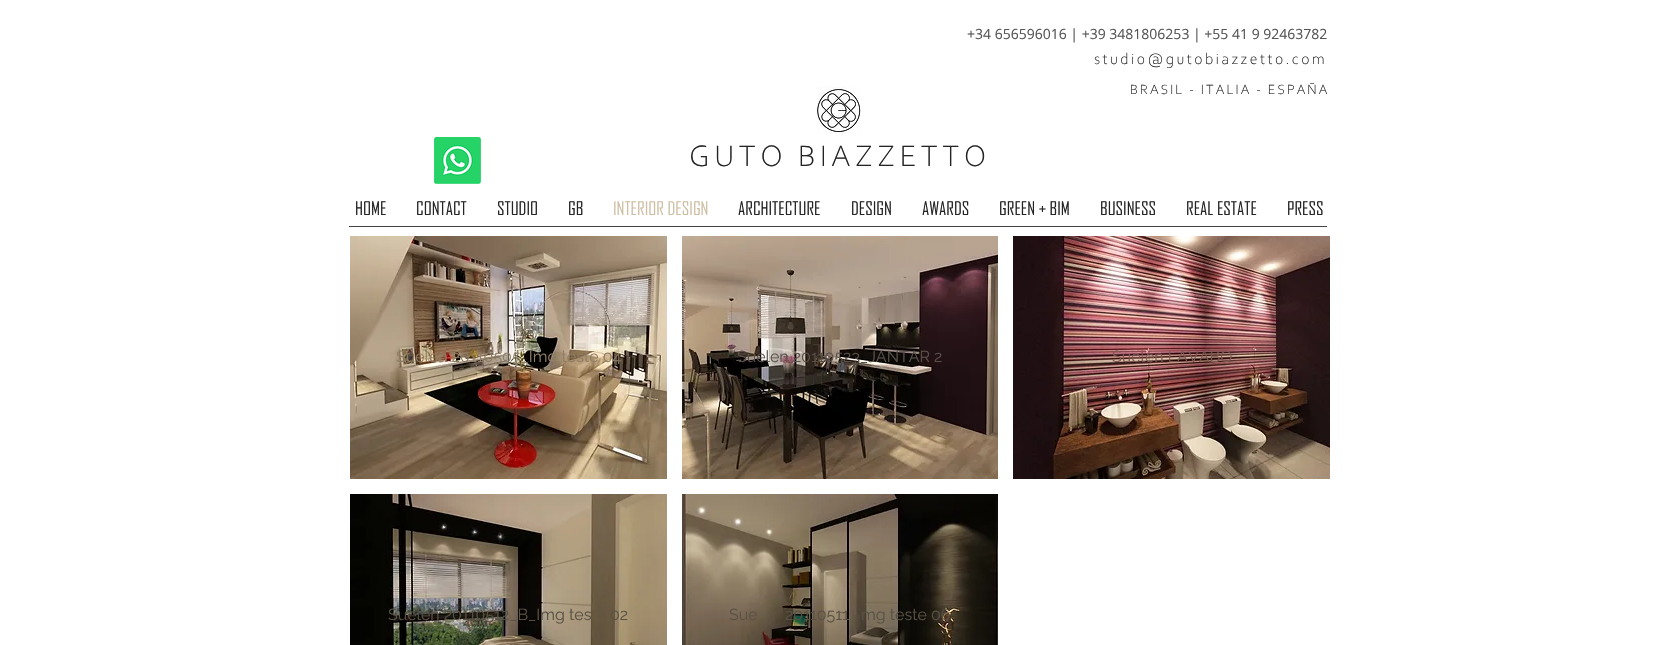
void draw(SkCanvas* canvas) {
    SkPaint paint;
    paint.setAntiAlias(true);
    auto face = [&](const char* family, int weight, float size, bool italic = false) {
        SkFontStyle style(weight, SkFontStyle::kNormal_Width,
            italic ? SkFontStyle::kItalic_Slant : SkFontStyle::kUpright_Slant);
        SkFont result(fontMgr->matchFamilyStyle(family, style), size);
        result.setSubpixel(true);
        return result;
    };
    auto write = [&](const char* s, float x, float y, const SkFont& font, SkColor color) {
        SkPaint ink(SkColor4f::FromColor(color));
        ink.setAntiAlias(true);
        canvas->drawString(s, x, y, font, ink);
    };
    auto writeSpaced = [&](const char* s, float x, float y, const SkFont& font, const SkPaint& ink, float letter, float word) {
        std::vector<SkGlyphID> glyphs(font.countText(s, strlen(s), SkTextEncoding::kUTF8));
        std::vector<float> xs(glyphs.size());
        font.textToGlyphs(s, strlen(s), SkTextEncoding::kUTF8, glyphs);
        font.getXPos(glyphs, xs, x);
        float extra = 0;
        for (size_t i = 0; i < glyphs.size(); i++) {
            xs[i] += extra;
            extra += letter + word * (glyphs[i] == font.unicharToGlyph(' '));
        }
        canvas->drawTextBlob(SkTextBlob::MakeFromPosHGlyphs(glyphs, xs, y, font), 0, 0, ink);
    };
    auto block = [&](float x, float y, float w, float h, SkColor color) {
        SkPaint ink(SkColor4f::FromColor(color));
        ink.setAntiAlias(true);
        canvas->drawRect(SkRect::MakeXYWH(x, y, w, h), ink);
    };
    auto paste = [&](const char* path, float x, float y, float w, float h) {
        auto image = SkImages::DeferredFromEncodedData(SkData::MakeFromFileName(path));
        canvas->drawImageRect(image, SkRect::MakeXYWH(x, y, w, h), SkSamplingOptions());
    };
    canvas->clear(SK_ColorWHITE);
    auto kFont1 = face("Open Sans", 400, 14);
    write("+34 656596016 | +39 3481806253 | +55 41 9 92463782", 967, 39, kFont1, SkColorSetRGB(85, 85, 85));
    auto kFont2 = face("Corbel", 300, 16);
    paint.setColor(SkColorSetRGB(36, 36, 36));
    writeSpaced("studio@gutobiazzetto.com", 1094, 64, kFont2, paint, 2.4f, 0);
    paste("pic1.png", 817, 86, 44, 48);
    auto kFont3 = face("Corbel", 300, 14);
    writeSpaced("BRASIL - ITALIA - ESPAÑA", 1130, 94, kFont3, paint, 2.1f, 0);
    paste("pic2.png", 434, 137, 47, 47);
    auto kFont4 = face("Corbel", 300, 31);
    writeSpaced("GUTO BIAZZETTO", 689, 166, kFont4, paint, 4.6f, 0);
    auto kFont5 = face("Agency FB", 400, 18);
    write("HOME", 355, 215, kFont5, SkColorSetRGB(36, 36, 36));
    write("CONTACT", 416, 215, kFont5, SkColorSetRGB(36, 36, 36));
    write("STUDIO", 497, 215, kFont5, SkColorSetRGB(36, 36, 36));
    write("GB", 568, 215, kFont5, SkColorSetRGB(36, 36, 36));
    write("INTERIOR DESIGN", 613, 215, kFont5, SkColorSetRGB(206, 191, 164));
    write("ARCHITECTURE", 738, 215, kFont5, SkColorSetRGB(36, 36, 36));
    write("DESIGN", 851, 215, kFont5, SkColorSetRGB(36, 36, 36));
    write("AWARDS", 922, 215, kFont5, SkColorSetRGB(36, 36, 36));
    write("GREEN + BIM", 999, 215, kFont5, SkColorSetRGB(36, 36, 36));
    write("BUSINESS", 1100, 215, kFont5, SkColorSetRGB(36, 36, 36));
    write("REAL ESTATE", 1186, 215, kFont5, SkColorSetRGB(36, 36, 36));
    write("PRESS", 1287, 215, kFont5, SkColorSetRGB(36, 36, 36));
    block(349, 226, 978, 1, SkColorSetRGB(66, 66, 66));
    paste("pic3.png", 350, 236, 317, 243);
    auto kFont6 = face("Raleway", 400, 16);
    write("Suelen 20110505_Img teste 04", 396, 362, kFont6, SkColorSetRGB(142, 124, 101));
    paste("pic4.png", 682, 236, 316, 243);
    write("Suelen 20110523_JANTAR 2", 737, 362, kFont6, SkColorSetRGB(89, 80, 74));
    paste("pic5.png", 1013, 236, 317, 243);
    write("Suelen LAVABO", 1112, 362, kFont6, SkColorSetRGB(127, 87, 81));
    paste("pic6.png", 350, 494, 317, 151);
    write("Suelen 20110512_B_Img tes", 388, 620, kFont6, SkColorSetRGB(88, 81, 67));
    write("02", 610, 620, kFont6, SkColorSetRGB(88, 81, 67));
    paste("pic7.png", 682, 494, 316, 151);
    write("Sue", 729, 620, kFont6, SkColorSetRGB(88, 81, 67));
    write("20110511", 785, 620, kFont6, SkColorSetRGB(88, 81, 67));
    write("mg teste 06", 861, 620, kFont6, SkColorSetRGB(88, 81, 67));
}
